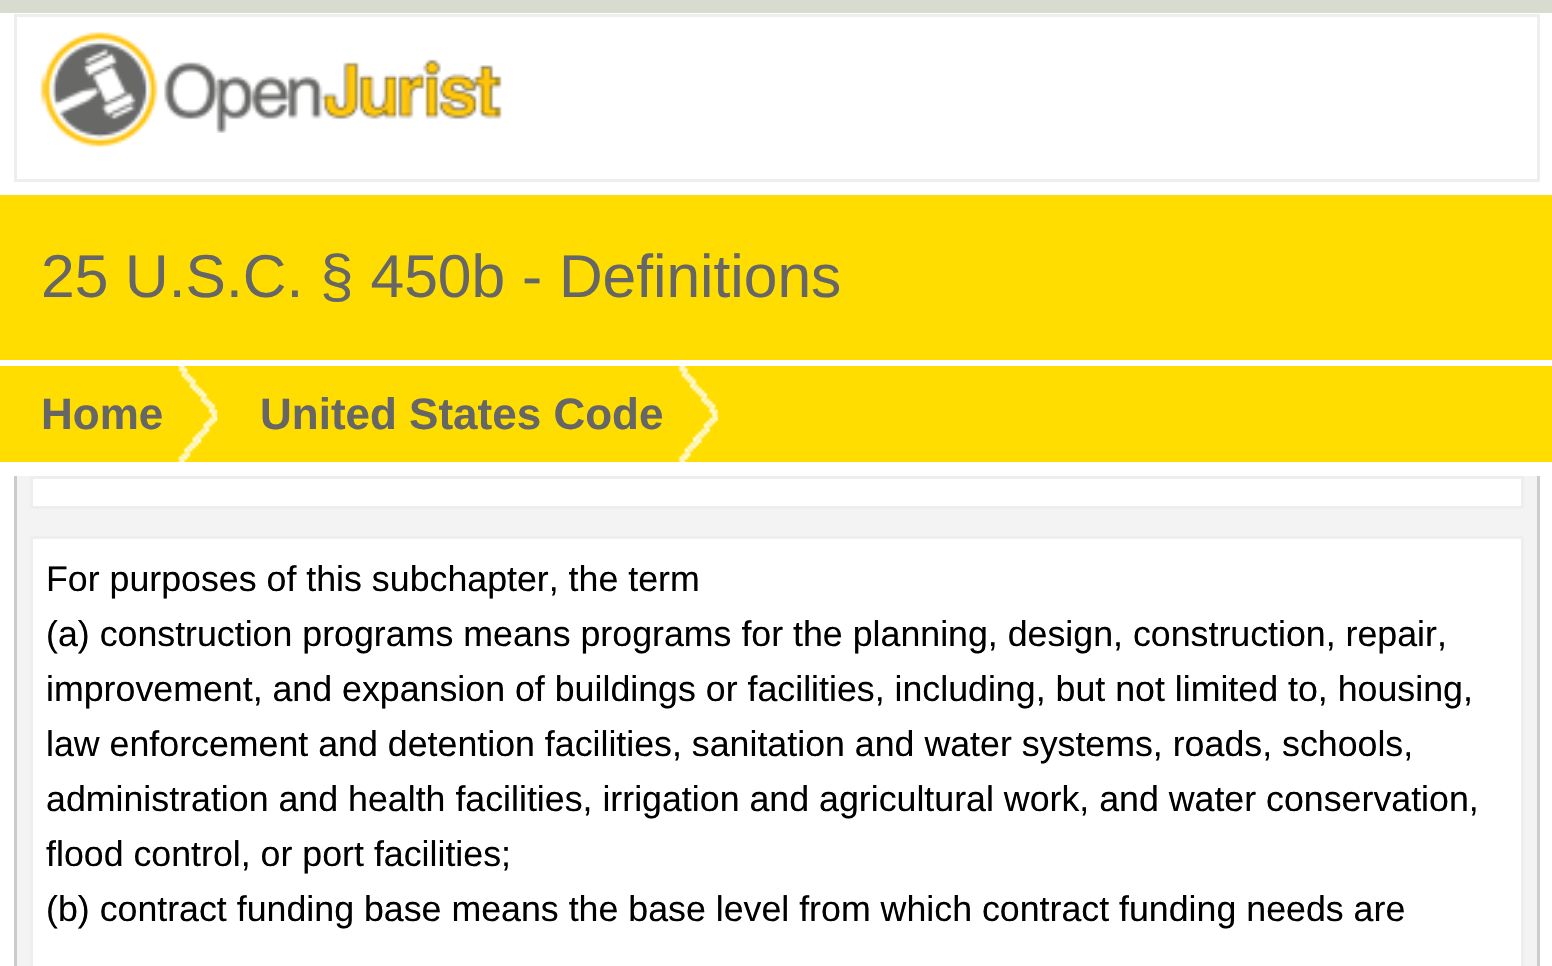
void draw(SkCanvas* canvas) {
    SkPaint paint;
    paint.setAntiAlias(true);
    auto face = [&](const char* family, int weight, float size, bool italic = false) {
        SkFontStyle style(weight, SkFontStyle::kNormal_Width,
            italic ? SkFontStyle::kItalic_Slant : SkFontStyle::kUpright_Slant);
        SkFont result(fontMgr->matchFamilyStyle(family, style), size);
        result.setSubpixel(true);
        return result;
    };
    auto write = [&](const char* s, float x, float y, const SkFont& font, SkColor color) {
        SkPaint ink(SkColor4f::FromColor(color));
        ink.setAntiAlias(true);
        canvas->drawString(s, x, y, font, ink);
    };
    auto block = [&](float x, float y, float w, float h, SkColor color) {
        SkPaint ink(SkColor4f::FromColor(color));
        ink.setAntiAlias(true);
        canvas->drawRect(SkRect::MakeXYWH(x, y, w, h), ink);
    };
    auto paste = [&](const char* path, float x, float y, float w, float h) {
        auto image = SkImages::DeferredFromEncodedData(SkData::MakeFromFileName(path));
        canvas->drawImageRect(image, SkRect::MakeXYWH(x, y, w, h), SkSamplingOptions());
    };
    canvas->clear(SkColorSetRGB(216, 220, 208));
    block(0, 13, 1552, 953, SK_ColorWHITE);
    paint.setStyle(SkPaint::kStroke_Style);
    paint.setStrokeWidth(3);
    paint.setColor(SkColorSetRGB(238, 238, 238));
    canvas->drawRect(SkRect::MakeXYWH(15.5f, 15.5f, 1523, 165), paint);
    paste("pic1.png", 40, 32, 462, 115);
    block(0, 195, 1552, 165, SkColorSetRGB(255, 221, 0));
    auto kFont1 = face("Liberation Sans", 400, 60.5f);
    write("25 U.S.C. § 450b - Definitions", 41, 297, kFont1, SkColorSetRGB(102, 102, 102));
    block(0, 366, 1552, 96, SkColorSetRGB(255, 221, 0));
    paste("pic2.png", 178, 365, 40, 97);
    auto kFont2 = face("Liberation Sans", 700, 44);
    write("Home", 41, 429, kFont2, SkColorSetRGB(102, 102, 102));
    paste("pic3.png", 678, 366, 40, 96);
    write("United States Code", 260, 429, kFont2, SkColorSetRGB(102, 102, 102));
    block(17, 476, 1520, 490, SkColorSetRGB(243, 243, 243));
    block(1537, 476, 3, 490, SkColorSetRGB(204, 204, 204));
    block(14, 476, 3, 490, SkColorSetRGB(204, 204, 204));
    paint.setStyle(SkPaint::kFill_Style);
    paint.setColor(SK_ColorWHITE);
    canvas->drawRect(SkRect::MakeXYWH(31.5f, 477.5f, 1491, 30), paint);
    paint.setStyle(SkPaint::kStroke_Style);
    paint.setColor(SkColorSetRGB(238, 238, 238));
    canvas->drawRect(SkRect::MakeXYWH(31.5f, 477.5f, 1491, 30), paint);
    paint.setStyle(SkPaint::kFill_Style);
    paint.setColor(SK_ColorWHITE);
    canvas->drawRect(SkRect::MakeXYWH(31.5f, 537.5f, 1491, 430), paint);
    paint.setStyle(SkPaint::kStroke_Style);
    paint.setColor(SkColorSetRGB(238, 238, 238));
    canvas->drawRect(SkRect::MakeXYWH(31.5f, 537.5f, 1491, 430), paint);
    auto kFont3 = face("Liberation Sans", 400, 35.75f);
    write("For purposes of this subchapter, the term", 46, 591, kFont3, SK_ColorBLACK);
    write("(a) construction programs means programs for the planning, design, construction, repair,", 46, 646, kFont3, SK_ColorBLACK);
    write("improvement, and expansion of buildings or facilities, including, but not limited to, housing,", 46, 701, kFont3, SK_ColorBLACK);
    write("law enforcement and detention facilities, sanitation and water systems, roads, schools,", 46, 756, kFont3, SK_ColorBLACK);
    write("administration and health facilities, irrigation and agricultural work, and water conservation,", 46, 811, kFont3, SK_ColorBLACK);
    write("flood control, or port facilities;", 46, 866, kFont3, SK_ColorBLACK);
    write("(b) contract funding base means the base level from which contract funding needs are", 46, 921, kFont3, SK_ColorBLACK);
}
